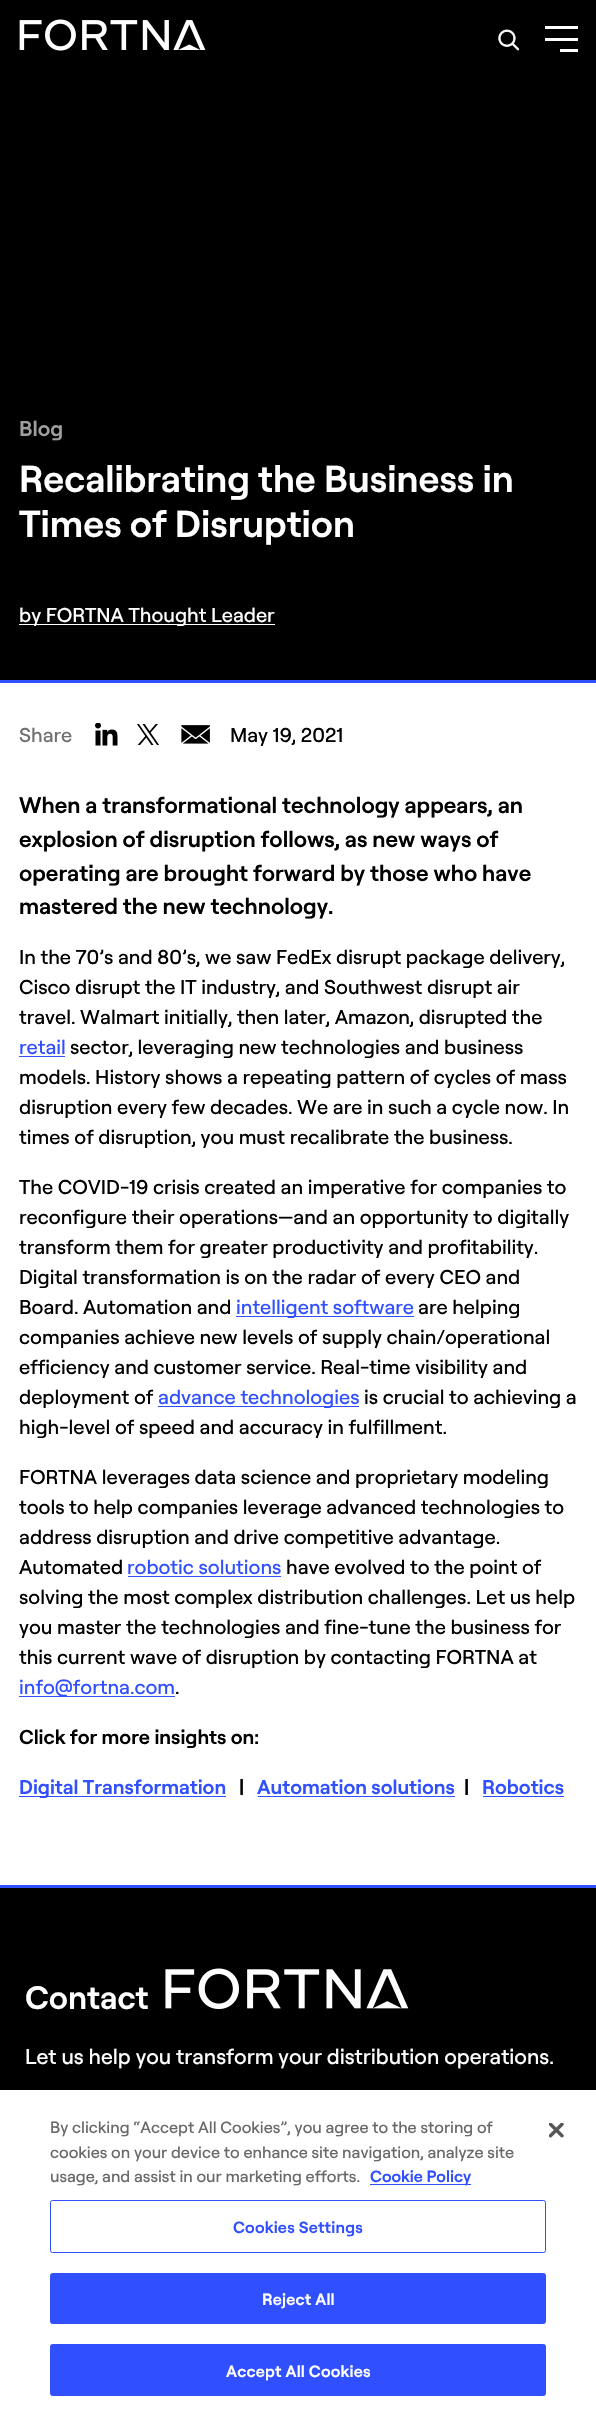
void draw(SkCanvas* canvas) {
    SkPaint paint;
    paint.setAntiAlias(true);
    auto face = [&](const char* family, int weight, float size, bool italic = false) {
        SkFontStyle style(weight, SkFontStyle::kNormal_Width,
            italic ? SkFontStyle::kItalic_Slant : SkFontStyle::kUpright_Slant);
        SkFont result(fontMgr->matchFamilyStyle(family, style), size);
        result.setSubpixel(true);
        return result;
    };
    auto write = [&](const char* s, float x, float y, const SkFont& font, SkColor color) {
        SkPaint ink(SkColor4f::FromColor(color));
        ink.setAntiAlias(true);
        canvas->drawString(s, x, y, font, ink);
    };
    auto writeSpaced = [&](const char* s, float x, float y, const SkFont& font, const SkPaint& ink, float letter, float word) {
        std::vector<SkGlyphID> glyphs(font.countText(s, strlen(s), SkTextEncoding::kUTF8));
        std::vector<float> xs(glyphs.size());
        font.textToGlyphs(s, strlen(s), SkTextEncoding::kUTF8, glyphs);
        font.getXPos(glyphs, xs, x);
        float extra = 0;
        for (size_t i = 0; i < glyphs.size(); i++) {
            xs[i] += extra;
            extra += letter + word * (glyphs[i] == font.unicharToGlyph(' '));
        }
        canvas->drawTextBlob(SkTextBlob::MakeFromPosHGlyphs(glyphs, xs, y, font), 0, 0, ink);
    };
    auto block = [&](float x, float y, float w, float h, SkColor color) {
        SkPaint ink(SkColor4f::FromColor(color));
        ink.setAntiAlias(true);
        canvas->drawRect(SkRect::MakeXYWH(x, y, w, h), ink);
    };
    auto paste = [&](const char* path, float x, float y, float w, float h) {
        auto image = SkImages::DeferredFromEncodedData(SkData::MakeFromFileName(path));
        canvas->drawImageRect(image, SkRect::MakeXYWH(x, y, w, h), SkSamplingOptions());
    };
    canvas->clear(SK_ColorWHITE);
    block(0, 0, 596, 680, SK_ColorBLACK);
    paste("pic1.png", 19, 19, 187, 32);
    paste("pic2.png", 498, 29, 22, 22);
    block(545, 26, 33, 3, SK_ColorWHITE);
    block(545, 38, 33, 3, SK_ColorWHITE);
    block(560, 49, 18, 3, SK_ColorWHITE);
    auto kFont1 = face("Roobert", 600, 21.25f);
    write("Blog", 19, 436, kFont1, SkColorSetRGB(158, 158, 158));
    auto kFont2 = face("Roobert", 600, 37.5f);
    write("Recalibrating the Business in", 19, 492, kFont2, SK_ColorWHITE);
    write("Times of Disruption", 19, 537, kFont2, SK_ColorWHITE);
    block(19, 624, 256, 1, SK_ColorWHITE);
    auto kFont3 = face("Roobert", 500, 20);
    write("by FORTNA Thought Leader", 19, 622, kFont3, SK_ColorWHITE);
    block(0, 680, 596, 3, SkColorSetRGB(48, 79, 255));
    write("Share", 19, 742, kFont3, SkColorSetRGB(112, 112, 112));
    paste("pic3.png", 95, 723, 23, 23);
    paste("pic4.png", 137, 724, 22, 21);
    paste("pic5.png", 181, 725, 29, 19);
    write("May 19, 2021", 230, 742, kFont3, SK_ColorBLACK);
    auto kFont4 = face("Roobert", 600, 22.5f);
    write("When a transformational technology appears, an", 19, 813, kFont4, SK_ColorBLACK);
    write("explosion of disruption follows, as new ways of", 19, 847, kFont4, SK_ColorBLACK);
    write("operating are brought forward by those who have", 19, 881, kFont4, SK_ColorBLACK);
    write("mastered the new technology.", 19, 914, kFont4, SK_ColorBLACK);
    write("In the 70’s and 80’s, we saw FedEx disrupt package delivery,", 19, 964, kFont3, SK_ColorBLACK);
    write("Cisco disrupt the IT industry, and Southwest disrupt air", 19, 994, kFont3, SK_ColorBLACK);
    write("travel. Walmart initially, then later, Amazon, disrupted the", 19, 1024, kFont3, SK_ColorBLACK);
    write("retail", 19, 1054, kFont3, SkColorSetRGB(48, 79, 255));
    block(19, 1056, 46, 1, SkColorSetRGB(48, 79, 255));
    write("sector, leveraging new technologies and business", 70, 1054, kFont3, SK_ColorBLACK);
    write("models. History shows a repeating pattern of cycles of mass", 19, 1084, kFont3, SK_ColorBLACK);
    write("disruption every few decades. We are in such a cycle now. In", 19, 1114, kFont3, SK_ColorBLACK);
    write("times of disruption, you must recalibrate the business.", 19, 1144, kFont3, SK_ColorBLACK);
    write("The COVID-19 crisis created an imperative for companies to", 19, 1194, kFont3, SK_ColorBLACK);
    write("reconfigure their operations—and an opportunity to digitally", 19, 1224, kFont3, SK_ColorBLACK);
    write("transform them for greater productivity and profitability.", 19, 1254, kFont3, SK_ColorBLACK);
    write("Digital transformation is on the radar of every CEO and", 19, 1284, kFont3, SK_ColorBLACK);
    write("Board. Automation and", 19, 1314, kFont3, SK_ColorBLACK);
    block(236, 1316, 178, 1, SkColorSetRGB(48, 79, 255));
    write("intelligent software", 236, 1314, kFont3, SkColorSetRGB(48, 79, 255));
    write("are helping", 418, 1314, kFont3, SK_ColorBLACK);
    write("companies achieve new levels of supply chain/operational", 19, 1344, kFont3, SK_ColorBLACK);
    write("efficiency and customer service. Real-time visibility and", 19, 1374, kFont3, SK_ColorBLACK);
    write("deployment of", 19, 1404, kFont3, SK_ColorBLACK);
    block(158, 1406, 201, 1, SkColorSetRGB(48, 79, 255));
    write("advance technologies", 158, 1404, kFont3, SkColorSetRGB(48, 79, 255));
    write("is crucial to achieving a", 364, 1404, kFont3, SK_ColorBLACK);
    write("high-level of speed and accuracy in fulfillment.", 19, 1434, kFont3, SK_ColorBLACK);
    write("FORTNA leverages data science and proprietary modeling", 19, 1484, kFont3, SK_ColorBLACK);
    write("tools to help companies leverage advanced technologies to", 19, 1514, kFont3, SK_ColorBLACK);
    write("address disruption and drive competitive advantage.", 19, 1544, kFont3, SK_ColorBLACK);
    write("Automated", 19, 1574, kFont3, SK_ColorBLACK);
    write("robotic solutions", 127, 1574, kFont3, SkColorSetRGB(48, 79, 255));
    block(128, 1576, 153, 1, SkColorSetRGB(48, 79, 255));
    write("have evolved to the point of", 286, 1574, kFont3, SK_ColorBLACK);
    write("solving the most complex distribution challenges. Let us help", 19, 1604, kFont3, SK_ColorBLACK);
    write("you master the technologies and fine-tune the business for", 19, 1634, kFont3, SK_ColorBLACK);
    write("this current wave of disruption by contacting FORTNA at", 19, 1664, kFont3, SK_ColorBLACK);
    block(19, 1696, 156, 1, SkColorSetRGB(48, 79, 255));
    write("info@fortna.com", 19, 1694, kFont3, SkColorSetRGB(48, 79, 255));
    write(".", 175, 1694, kFont3, SK_ColorBLACK);
    auto kFont5 = face("Roobert", 600, 20);
    write("Click for more insights on:", 19, 1744, kFont5, SK_ColorBLACK);
    block(19, 1796, 207, 1, SkColorSetRGB(48, 79, 255));
    write("Digital Transformation", 19, 1794, kFont5, SkColorSetRGB(48, 79, 255));
    write("|", 239, 1794, kFont5, SK_ColorBLACK);
    write("Automation solutions", 257, 1794, kFont5, SkColorSetRGB(48, 79, 255));
    block(258, 1796, 197, 1, SkColorSetRGB(48, 79, 255));
    write("|", 464, 1794, kFont5, SK_ColorBLACK);
    write("Robotics", 482, 1794, kFont5, SkColorSetRGB(48, 79, 255));
    block(483, 1796, 81, 1, SkColorSetRGB(48, 79, 255));
    block(0, 1888, 596, 202, SK_ColorBLACK);
    block(0, 1885, 596, 3, SkColorSetRGB(48, 79, 255));
    auto kFont6 = face("Roobert", 600, 32.5f);
    write("Contact", 25, 2009, kFont6, SK_ColorWHITE);
    paste("pic6.png", 165, 1968, 244, 42);
    auto kFont7 = face("Roobert", 500, 21.25f);
    write("Let us help you transform your distribution operations.", 25, 2064, kFont7, SK_ColorWHITE);
    paint.setColor(SkColorSetARGB(51, 0, 0, 0));
    paint.setMaskFilter(SkMaskFilter::MakeBlur(kNormal_SkBlurStyle, 11));
    canvas->drawRect(SkRect::MakeXYWH(0, 2090, 596, 326), paint);
    paint.setMaskFilter(nullptr);
    block(0, 2090, 596, 326, SK_ColorWHITE);
    auto kFont8 = face("Roobert", 500, 16.25f);
    write("By clicking “Accept All Cookies”, you agree to the storing of", 50, 2133, kFont8, SkColorSetRGB(105, 105, 105));
    write("cookies on your device to enhance site navigation, analyze site", 50, 2158, kFont8, SkColorSetRGB(105, 105, 105));
    write("usage, and assist in our marketing efforts.", 50, 2182, kFont8, SkColorSetRGB(105, 105, 105));
    block(370, 2184, 101, 1, SkColorSetRGB(48, 79, 255));
    auto kFont9 = face("Roobert", 600, 16.25f);
    write("Cookie Policy", 370, 2182, kFont9, SkColorSetRGB(48, 79, 255));
    paint.setStyle(SkPaint::kStroke_Style);
    paint.setStrokeWidth(1);
    paint.setColor(SkColorSetRGB(48, 79, 255));
    canvas->drawRoundRect(SkRect::MakeXYWH(50.5f, 2200.5f, 495, 52), 2, 2, paint);
    paint.setStyle(SkPaint::kFill_Style);
    writeSpaced("Cookies Settings", 233, 2233, kFont9, paint, 0.2f, 0);
    canvas->drawRoundRect(SkRect::MakeXYWH(50.5f, 2273.5f, 495, 50), 2, 2, paint);
    paint.setStyle(SkPaint::kStroke_Style);
    canvas->drawRoundRect(SkRect::MakeXYWH(50.5f, 2273.5f, 495, 50), 2, 2, paint);
    paint.setStyle(SkPaint::kFill_Style);
    paint.setColor(SK_ColorWHITE);
    writeSpaced("Reject All", 262, 2305, kFont9, paint, 0.2f, 0);
    paint.setColor(SkColorSetRGB(48, 79, 255));
    canvas->drawRoundRect(SkRect::MakeXYWH(50.5f, 2344.5f, 495, 51), 2, 2, paint);
    paint.setStyle(SkPaint::kStroke_Style);
    canvas->drawRoundRect(SkRect::MakeXYWH(50.5f, 2344.5f, 495, 51), 2, 2, paint);
    paint.setStyle(SkPaint::kFill_Style);
    paint.setColor(SK_ColorWHITE);
    writeSpaced("Accept All Cookies", 226, 2377, kFont9, paint, 0.2f, 0);
    paste("pic7.png", 549, 2123, 15, 15);
}
